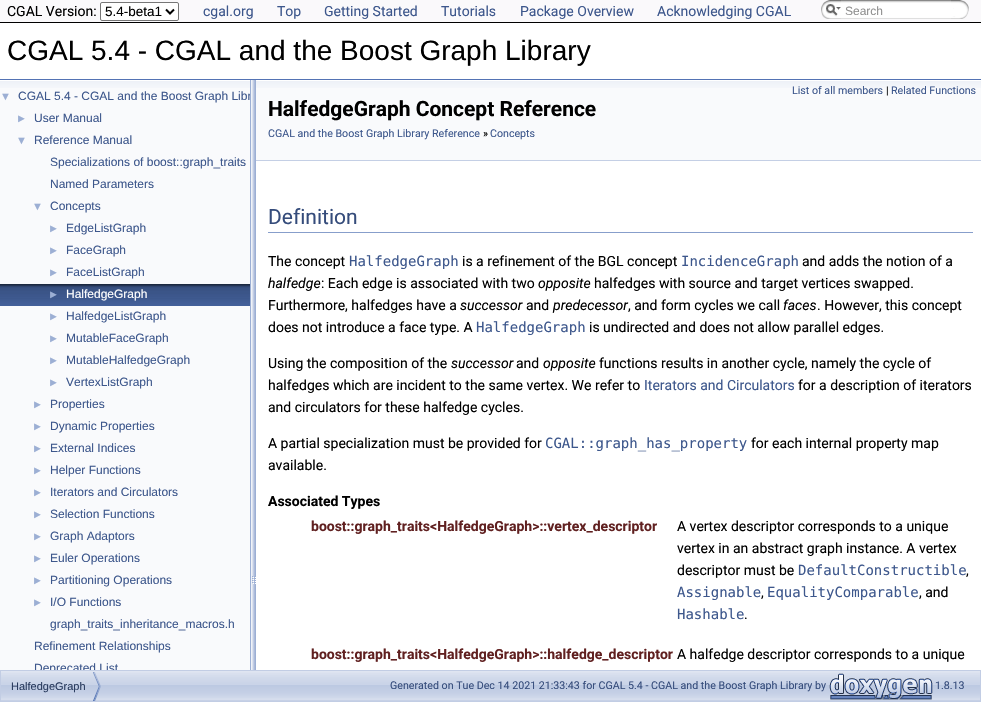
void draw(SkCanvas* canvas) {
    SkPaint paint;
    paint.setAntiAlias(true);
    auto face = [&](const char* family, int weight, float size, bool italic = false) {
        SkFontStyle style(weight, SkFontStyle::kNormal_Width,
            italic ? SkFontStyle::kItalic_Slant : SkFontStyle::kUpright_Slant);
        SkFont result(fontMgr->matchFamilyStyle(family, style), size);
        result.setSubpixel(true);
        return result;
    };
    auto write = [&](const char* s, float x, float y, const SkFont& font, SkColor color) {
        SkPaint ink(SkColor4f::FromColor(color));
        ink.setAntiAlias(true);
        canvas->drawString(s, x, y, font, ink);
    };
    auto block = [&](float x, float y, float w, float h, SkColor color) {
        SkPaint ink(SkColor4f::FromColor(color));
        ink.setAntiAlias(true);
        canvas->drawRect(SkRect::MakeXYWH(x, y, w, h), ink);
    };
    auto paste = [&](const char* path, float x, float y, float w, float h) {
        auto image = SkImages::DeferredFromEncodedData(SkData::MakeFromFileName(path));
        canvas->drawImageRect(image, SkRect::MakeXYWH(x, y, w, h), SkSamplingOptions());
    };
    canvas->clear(SK_ColorWHITE);
    block(0, 0, 981, 22, SkColorSetRGB(250, 249, 251));
    block(0, 22, 981, 1, SK_ColorBLACK);
    auto kFont1 = face("Roboto", 400, 14);
    write("CGAL Version:", 7, 16, kFont1, SK_ColorBLACK);
    paint.setColor(SK_ColorWHITE);
    canvas->drawRoundRect(SkRect::MakeXYWH(100.5f, 2.5f, 78, 18), 1.5f, 1.5f, paint);
    paint.setStyle(SkPaint::kStroke_Style);
    paint.setStrokeWidth(1);
    paint.setColor(SkColorSetRGB(118, 118, 118));
    canvas->drawRoundRect(SkRect::MakeXYWH(100.5f, 2.5f, 78, 18), 1.5f, 1.5f, paint);
    paint.setStrokeWidth(2);
    paint.setColor(SK_ColorBLACK);
    canvas->drawPath(SkPathBuilder().moveTo(166, 9.5f).lineTo(170, 13.5f).lineTo(174, 9.5f).detach(), paint);
    auto kFont2 = face("Liberation Sans", 400, 13.5f);
    write("5.4-beta1", 105, 16, kFont2, SK_ColorBLACK);
    write("cgal.org", 203, 16, kFont1, SkColorSetRGB(61, 87, 140));
    write("Top", 277, 16, kFont1, SkColorSetRGB(61, 87, 140));
    write("Getting Started", 324, 16, kFont1, SkColorSetRGB(61, 87, 140));
    write("Tutorials", 441, 16, kFont1, SkColorSetRGB(61, 87, 140));
    write("Package Overview", 520, 16, kFont1, SkColorSetRGB(61, 87, 140));
    write("Acknowledging CGAL", 657, 16, kFont1, SkColorSetRGB(61, 87, 140));
    paste("pic1.png", 821, 0, 20, 19);
    paste("pic2.png", 826, 4, 15, 12);
    paste("pic3.png", 841, 0, 110, 19);
    auto kFont3 = face("Liberation Sans", 400, 12);
    write("Search", 845, 15, kFont3, SkColorSetRGB(144, 144, 144));
    paste("pic4.png", 951, 0, 18, 19);
    block(0, 79, 981, 1, SkColorSetRGB(83, 115, 180));
    auto kFont4 = face("Liberation Sans", 400, 28);
    write("CGAL 5.4 - CGAL and the Boost Graph Library", 7, 60, kFont4, SK_ColorBLACK);
    block(0, 88, 250, 582, SkColorSetRGB(249, 250, 252));
    paste("pic5.png", 0, 80, 250, 8);
    auto kFont5 = face("Liberation Sans", 400, 11);
    write("▼", 0, 100, kFont5, SkColorSetRGB(156, 175, 212));
    write("CGAL 5.4 - CGAL and the Boost Graph Libr", 18, 100, kFont3, SkColorSetRGB(61, 87, 140));
    write("►", 16, 122, kFont5, SkColorSetRGB(156, 175, 212));
    write("User Manual", 34, 122, kFont3, SkColorSetRGB(61, 87, 140));
    write("▼", 16, 144, kFont5, SkColorSetRGB(156, 175, 212));
    write("Reference Manual", 34, 144, kFont3, SkColorSetRGB(61, 87, 140));
    write("Specializations of boost::graph_traits", 50, 166, kFont3, SkColorSetRGB(61, 87, 140));
    write("Named Parameters", 50, 188, kFont3, SkColorSetRGB(61, 87, 140));
    write("▼", 32, 210, kFont5, SkColorSetRGB(156, 175, 212));
    write("Concepts", 50, 210, kFont3, SkColorSetRGB(61, 87, 140));
    write("►", 48, 232, kFont5, SkColorSetRGB(156, 175, 212));
    write("EdgeListGraph", 66, 232, kFont3, SkColorSetRGB(61, 87, 140));
    write("►", 48, 254, kFont5, SkColorSetRGB(156, 175, 212));
    write("FaceGraph", 66, 254, kFont3, SkColorSetRGB(61, 87, 140));
    write("►", 48, 276, kFont5, SkColorSetRGB(156, 175, 212));
    write("FaceListGraph", 66, 276, kFont3, SkColorSetRGB(61, 87, 140));
    paste("pic6.png", 0, 284, 250, 22);
    write("►", 48, 298, kFont5, SkColorSetRGB(156, 175, 212));
    write("HalfedgeGraph", 66, 298, kFont3, SK_ColorWHITE);
    write("►", 48, 320, kFont5, SkColorSetRGB(156, 175, 212));
    write("HalfedgeListGraph", 66, 320, kFont3, SkColorSetRGB(61, 87, 140));
    write("►", 48, 342, kFont5, SkColorSetRGB(156, 175, 212));
    write("MutableFaceGraph", 66, 342, kFont3, SkColorSetRGB(61, 87, 140));
    write("►", 48, 364, kFont5, SkColorSetRGB(156, 175, 212));
    write("MutableHalfedgeGraph", 66, 364, kFont3, SkColorSetRGB(61, 87, 140));
    write("►", 48, 386, kFont5, SkColorSetRGB(156, 175, 212));
    write("VertexListGraph", 66, 386, kFont3, SkColorSetRGB(61, 87, 140));
    write("►", 32, 408, kFont5, SkColorSetRGB(156, 175, 212));
    write("Properties", 50, 408, kFont3, SkColorSetRGB(61, 87, 140));
    write("►", 32, 430, kFont5, SkColorSetRGB(156, 175, 212));
    write("Dynamic Properties", 50, 430, kFont3, SkColorSetRGB(61, 87, 140));
    write("►", 32, 452, kFont5, SkColorSetRGB(156, 175, 212));
    write("External Indices", 50, 452, kFont3, SkColorSetRGB(61, 87, 140));
    write("►", 32, 474, kFont5, SkColorSetRGB(156, 175, 212));
    write("Helper Functions", 50, 474, kFont3, SkColorSetRGB(61, 87, 140));
    write("►", 32, 496, kFont5, SkColorSetRGB(156, 175, 212));
    write("Iterators and Circulators", 50, 496, kFont3, SkColorSetRGB(61, 87, 140));
    write("►", 32, 518, kFont5, SkColorSetRGB(156, 175, 212));
    write("Selection Functions", 50, 518, kFont3, SkColorSetRGB(61, 87, 140));
    write("►", 32, 540, kFont5, SkColorSetRGB(156, 175, 212));
    write("Graph Adaptors", 50, 540, kFont3, SkColorSetRGB(61, 87, 140));
    write("►", 32, 562, kFont5, SkColorSetRGB(156, 175, 212));
    write("Euler Operations", 50, 562, kFont3, SkColorSetRGB(61, 87, 140));
    write("►", 32, 584, kFont5, SkColorSetRGB(156, 175, 212));
    write("Partitioning Operations", 50, 584, kFont3, SkColorSetRGB(61, 87, 140));
    write("►", 32, 606, kFont5, SkColorSetRGB(156, 175, 212));
    write("I/O Functions", 50, 606, kFont3, SkColorSetRGB(61, 87, 140));
    write("graph_traits_inheritance_macros.h", 50, 628, kFont3, SkColorSetRGB(61, 87, 140));
    write("Refinement Relationships", 34, 650, kFont3, SkColorSetRGB(61, 87, 140));
    canvas->save();
    canvas->clipRect(SkRect::MakeXYWH(0, 80, 250, 590));
    write("Deprecated List", 34, 672, kFont3, SkColorSetRGB(61, 87, 140));
    canvas->restore();
    paste("pic7.png", 250, 80, 6, 590);
    block(256, 88, 725, 72, SkColorSetRGB(249, 250, 252));
    paste("pic8.png", 256, 80, 725, 8);
    block(256, 160, 725, 1, SkColorSetRGB(196, 207, 229));
    auto kFont6 = face("Roboto", 400, 10.65f);
    write("List of all members", 792, 94, kFont6, SkColorSetRGB(61, 87, 140));
    write("|", 886, 94, kFont6, SK_ColorBLACK);
    write("Related Functions", 891, 94, kFont6, SkColorSetRGB(61, 87, 140));
    auto kFont7 = face("Roboto", 700, 21);
    write("HalfedgeGraph Concept Reference", 268, 116, kFont7, SK_ColorBLACK);
    write("CGAL and the Boost Graph Library Reference", 268, 137, kFont6, SkColorSetRGB(61, 87, 140));
    write("»", 483, 137, kFont6, SK_ColorBLACK);
    write("Concepts", 490, 137, kFont6, SkColorSetRGB(61, 87, 140));
    block(268, 232, 705, 1, SkColorSetRGB(135, 158, 203));
    auto kFont8 = face("Roboto", 400, 21);
    write("Definition", 268, 224, kFont8, SkColorSetRGB(53, 76, 123));
    write("The concept", 268, 266, kFont1, SK_ColorBLACK);
    auto kFont9 = face("DejaVu Sans Mono", 400, 14);
    write("HalfedgeGraph", 349, 266, kFont9, SkColorSetRGB(61, 87, 140));
    write("is a refinement of the BGL concept", 462, 266, kFont1, SK_ColorBLACK);
    write("IncidenceGraph", 681, 266, kFont9, SkColorSetRGB(61, 87, 140));
    write("and adds the notion of a", 802, 266, kFont1, SK_ColorBLACK);
    auto kFont10 = face("Roboto", 400, 14, true);
    write("halfedge", 268, 288, kFont10, SK_ColorBLACK);
    write(": Each edge is associated with two", 321, 288, kFont1, SK_ColorBLACK);
    write("opposite", 538, 288, kFont10, SK_ColorBLACK);
    write("halfedges with source and target vertices swapped.", 594, 288, kFont1, SK_ColorBLACK);
    write("Furthermore, halfedges have a", 268, 310, kFont1, SK_ColorBLACK);
    write("successor", 460, 310, kFont10, SK_ColorBLACK);
    write("and", 526, 310, kFont1, SK_ColorBLACK);
    write("predecessor", 553, 310, kFont10, SK_ColorBLACK);
    write(", and form cycles we call", 628, 310, kFont1, SK_ColorBLACK);
    write("faces", 783, 310, kFont10, SK_ColorBLACK);
    write(". However, this concept", 817, 310, kFont1, SK_ColorBLACK);
    write("does not introduce a face type. A", 268, 332, kFont1, SK_ColorBLACK);
    write("HalfedgeGraph", 476, 332, kFont9, SkColorSetRGB(61, 87, 140));
    write("is undirected and does not allow parallel edges.", 589, 332, kFont1, SK_ColorBLACK);
    write("Using the composition of the", 268, 368, kFont1, SK_ColorBLACK);
    write("successor", 451, 368, kFont10, SK_ColorBLACK);
    write("and", 516, 368, kFont1, SK_ColorBLACK);
    write("opposite", 543, 368, kFont10, SK_ColorBLACK);
    write("functions results in another cycle, namely the cycle of", 599, 368, kFont1, SK_ColorBLACK);
    write("halfedges which are incident to the same vertex. We refer to", 268, 390, kFont1, SK_ColorBLACK);
    write("Iterators and Circulators", 644, 390, kFont1, SkColorSetRGB(61, 87, 140));
    write("for a description of iterators", 798, 390, kFont1, SK_ColorBLACK);
    write("and circulators for these halfedge cycles.", 268, 412, kFont1, SK_ColorBLACK);
    write("A partial specialization must be provided for", 268, 448, kFont1, SK_ColorBLACK);
    write("CGAL::graph_has_property", 545, 448, kFont9, SkColorSetRGB(61, 87, 140));
    write("for each internal property map", 751, 448, kFont1, SK_ColorBLACK);
    write("available.", 268, 470, kFont1, SK_ColorBLACK);
    auto kFont11 = face("Roboto", 700, 14);
    write("Associated Types", 268, 506, kFont11, SK_ColorBLACK);
    write("boost::graph_traits<HalfedgeGraph>::vertex_descriptor", 311, 531, kFont11, SkColorSetRGB(96, 32, 32));
    write("A vertex descriptor corresponds to a unique", 677, 531, kFont1, SK_ColorBLACK);
    write("vertex in an abstract graph instance. A vertex", 677, 553, kFont1, SK_ColorBLACK);
    write("descriptor must be", 677, 575, kFont1, SK_ColorBLACK);
    write("DefaultConstructible", 798, 575, kFont9, SkColorSetRGB(61, 87, 140));
    write(",", 966, 575, kFont1, SK_ColorBLACK);
    write("Assignable", 677, 597, kFont9, SkColorSetRGB(61, 87, 140));
    write(",", 761, 597, kFont1, SK_ColorBLACK);
    write("EqualityComparable", 767, 597, kFont9, SkColorSetRGB(61, 87, 140));
    write(", and", 919, 597, kFont1, SK_ColorBLACK);
    write("Hashable", 677, 619, kFont9, SkColorSetRGB(61, 87, 140));
    write(".", 744, 619, kFont1, SK_ColorBLACK);
    write("boost::graph_traits<HalfedgeGraph>::halfedge_descriptor", 311, 659, kFont11, SkColorSetRGB(96, 32, 32));
    write("A halfedge descriptor corresponds to a unique", 677, 659, kFont1, SK_ColorBLACK);
    paste("pic9.png", 1, 671, 979, 30);
    paint.setStrokeWidth(1);
    paint.setColor(SkColorSetRGB(194, 205, 228));
    canvas->drawRect(SkRect::MakeXYWH(0.5f, 670.5f, 980, 31), paint);
    paste("pic10.png", 93, 672, 8, 29);
    write("HalfedgeGraph", 11, 690, kFont5, SkColorSetRGB(40, 58, 93));
    write("Generated on Tue Dec 14 2021 21:33:43 for CGAL 5.4 - CGAL and the Boost Graph Library by", 390, 689, kFont6, SkColorSetRGB(53, 76, 123));
    paste("pic11.png", 829, 673, 104, 27);
    write("1.8.13", 935, 689, kFont6, SkColorSetRGB(53, 76, 123));
}
